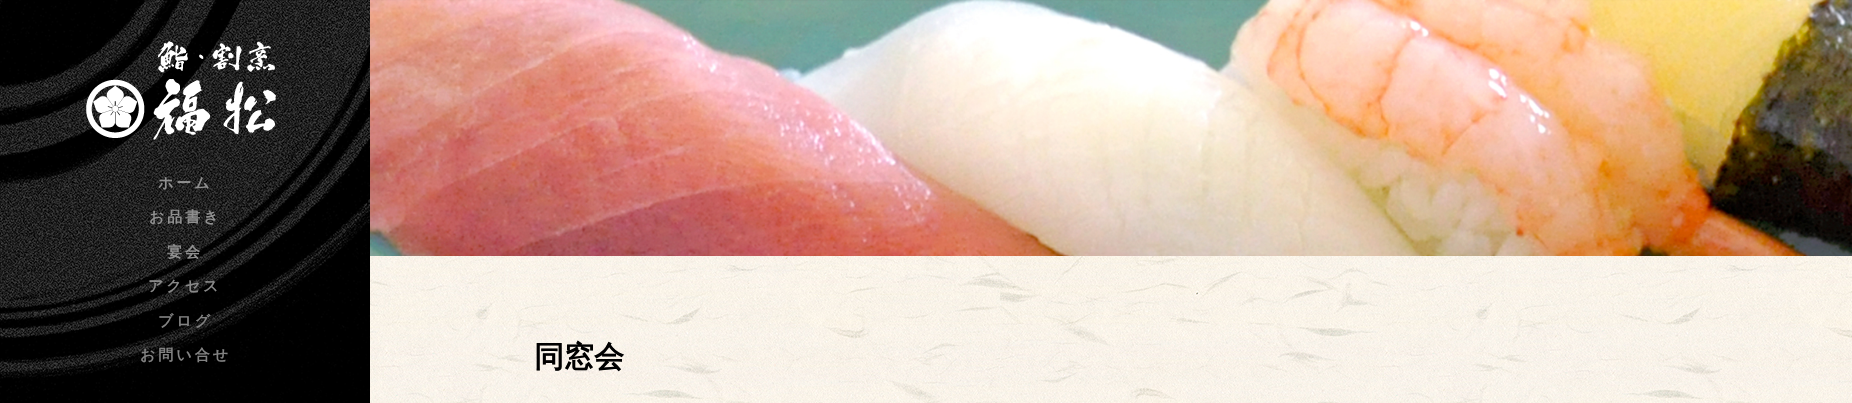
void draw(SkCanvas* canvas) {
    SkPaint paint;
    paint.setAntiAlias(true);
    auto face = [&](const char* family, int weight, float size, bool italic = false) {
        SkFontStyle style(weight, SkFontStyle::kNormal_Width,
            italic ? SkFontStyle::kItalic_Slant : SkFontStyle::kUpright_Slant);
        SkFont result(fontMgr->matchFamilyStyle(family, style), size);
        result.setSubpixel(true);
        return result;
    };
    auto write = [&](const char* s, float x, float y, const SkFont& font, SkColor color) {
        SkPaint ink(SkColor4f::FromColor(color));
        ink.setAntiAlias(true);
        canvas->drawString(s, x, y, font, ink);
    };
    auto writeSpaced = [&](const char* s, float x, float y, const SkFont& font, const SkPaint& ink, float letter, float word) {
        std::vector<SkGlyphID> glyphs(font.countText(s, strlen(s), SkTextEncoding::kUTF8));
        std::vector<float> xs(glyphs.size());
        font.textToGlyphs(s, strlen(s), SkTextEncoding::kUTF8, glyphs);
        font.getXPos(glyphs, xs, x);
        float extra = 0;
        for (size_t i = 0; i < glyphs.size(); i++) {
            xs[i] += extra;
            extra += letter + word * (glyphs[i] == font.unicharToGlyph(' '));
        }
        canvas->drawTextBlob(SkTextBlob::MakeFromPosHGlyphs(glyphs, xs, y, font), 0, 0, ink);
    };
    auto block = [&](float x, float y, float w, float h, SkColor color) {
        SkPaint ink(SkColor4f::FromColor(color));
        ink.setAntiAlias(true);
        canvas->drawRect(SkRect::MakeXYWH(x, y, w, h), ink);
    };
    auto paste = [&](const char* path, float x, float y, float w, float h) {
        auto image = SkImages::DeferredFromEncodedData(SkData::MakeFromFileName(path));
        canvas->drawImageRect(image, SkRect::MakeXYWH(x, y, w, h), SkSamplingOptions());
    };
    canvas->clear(SK_ColorWHITE);
    paste("pic1.png", 370, 256, 1482, 147);
    block(0, 0, 370, 403, SK_ColorBLACK);
    paste("pic2.png", 0, 0, 370, 403);
    paste("pic3.png", 86, 41, 190, 99);
    auto kFont1 = face("WenQuanYi Zen Hei", 700, 15);
    paint.setColor(SkColorSetRGB(144, 144, 144));
    writeSpaced("ホーム", 158, 188, kFont1, paint, 3, 0);
    writeSpaced("お品書き", 149, 222, kFont1, paint, 3, 0);
    writeSpaced("宴会", 167, 257, kFont1, paint, 3, 0);
    paint.setColor(SkColorSetRGB(136, 136, 136));
    writeSpaced("アクセス", 148, 291, kFont1, paint, 3, 0);
    paint.setColor(SkColorSetRGB(130, 130, 130));
    writeSpaced("ブログ", 158, 326, kFont1, paint, 3, 0);
    writeSpaced("お問い合せ", 140, 360, kFont1, paint, 3, 0);
    paste("pic4.png", 370, 0, 1482, 256);
    auto kFont2 = face("WenQuanYi Zen Hei", 700, 30);
    write("同窓会", 534, 367, kFont2, SK_ColorBLACK);
}
